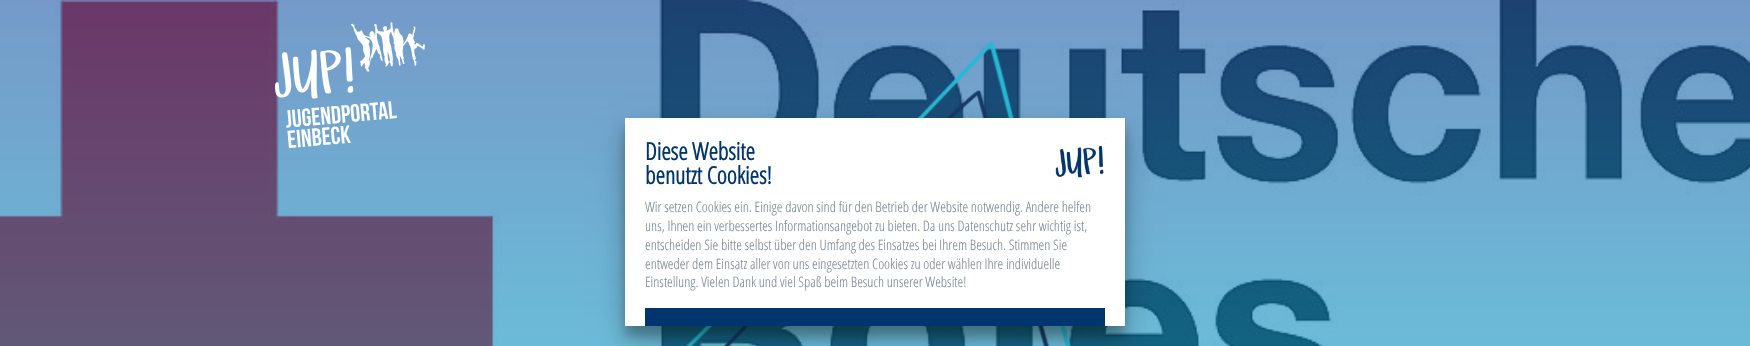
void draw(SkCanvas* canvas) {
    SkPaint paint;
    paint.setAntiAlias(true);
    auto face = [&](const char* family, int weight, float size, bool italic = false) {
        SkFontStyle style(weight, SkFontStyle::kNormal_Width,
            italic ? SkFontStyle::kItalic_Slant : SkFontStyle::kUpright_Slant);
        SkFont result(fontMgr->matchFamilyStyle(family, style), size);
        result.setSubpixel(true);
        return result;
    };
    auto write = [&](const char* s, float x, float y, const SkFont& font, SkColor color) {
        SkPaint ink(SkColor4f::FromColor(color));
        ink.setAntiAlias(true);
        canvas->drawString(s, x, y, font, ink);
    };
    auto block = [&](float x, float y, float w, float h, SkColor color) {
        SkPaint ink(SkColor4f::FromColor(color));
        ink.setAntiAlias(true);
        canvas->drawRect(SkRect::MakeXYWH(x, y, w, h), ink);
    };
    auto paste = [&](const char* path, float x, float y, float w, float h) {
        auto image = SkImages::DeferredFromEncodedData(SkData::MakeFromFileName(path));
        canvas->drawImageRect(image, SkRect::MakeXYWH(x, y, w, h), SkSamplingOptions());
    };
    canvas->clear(SK_ColorWHITE);
    paste("pic1.png", 0, 0, 1750, 346);
    paste("pic2.png", 685, 41, 386, 305);
    paste("pic3.png", 275, 22, 150, 126);
    paint.setColor(SkColorSetARGB(56, 0, 0, 0));
    paint.setMaskFilter(SkMaskFilter::MakeBlur(kNormal_SkBlurStyle, 5));
    canvas->drawRect(SkRect::MakeXYWH(625, 128, 500, 208), paint);
    paint.setMaskFilter(nullptr);
    paint.setColor(SkColorSetARGB(64, 0, 0, 0));
    paint.setMaskFilter(SkMaskFilter::MakeBlur(kNormal_SkBlurStyle, 14));
    canvas->drawRect(SkRect::MakeXYWH(625, 132, 500, 208), paint);
    paint.setMaskFilter(nullptr);
    block(625, 118, 500, 208, SK_ColorWHITE);
    auto kFont1 = face("Open Sans", 700, 24);
    write("Diese Website", 645, 160, kFont1, SkColorSetRGB(0, 54, 109));
    write("benutzt Cookies!", 645, 184, kFont1, SkColorSetRGB(0, 54, 109));
    paste("pic4.png", 1055, 138, 50, 40);
    auto kFont2 = face("Open Sans", 300, 14.4f);
    write("Wir setzen Cookies ein. Einige davon sind für den Betrieb der Website notwendig. Andere helfen", 645, 212, kFont2, SkColorSetRGB(119, 138, 153));
    write("uns, Ihnen ein verbessertes Informationsangebot zu bieten. Da uns Datenschutz sehr wichtig ist,", 645, 231, kFont2, SkColorSetRGB(119, 138, 153));
    write("entscheiden Sie bitte selbst über den Umfang des Einsatzes bei Ihrem Besuch. Stimmen Sie", 645, 250, kFont2, SkColorSetRGB(119, 138, 153));
    write("entweder dem Einsatz aller von uns eingesetzten Cookies zu oder wählen Ihre individuelle", 645, 269, kFont2, SkColorSetRGB(119, 138, 153));
    write("Einstellung. Vielen Dank und viel Spaß beim Besuch unserer Website!", 645, 287, kFont2, SkColorSetRGB(119, 138, 153));
    block(645, 308, 460, 18, SkColorSetRGB(0, 54, 109));
}
